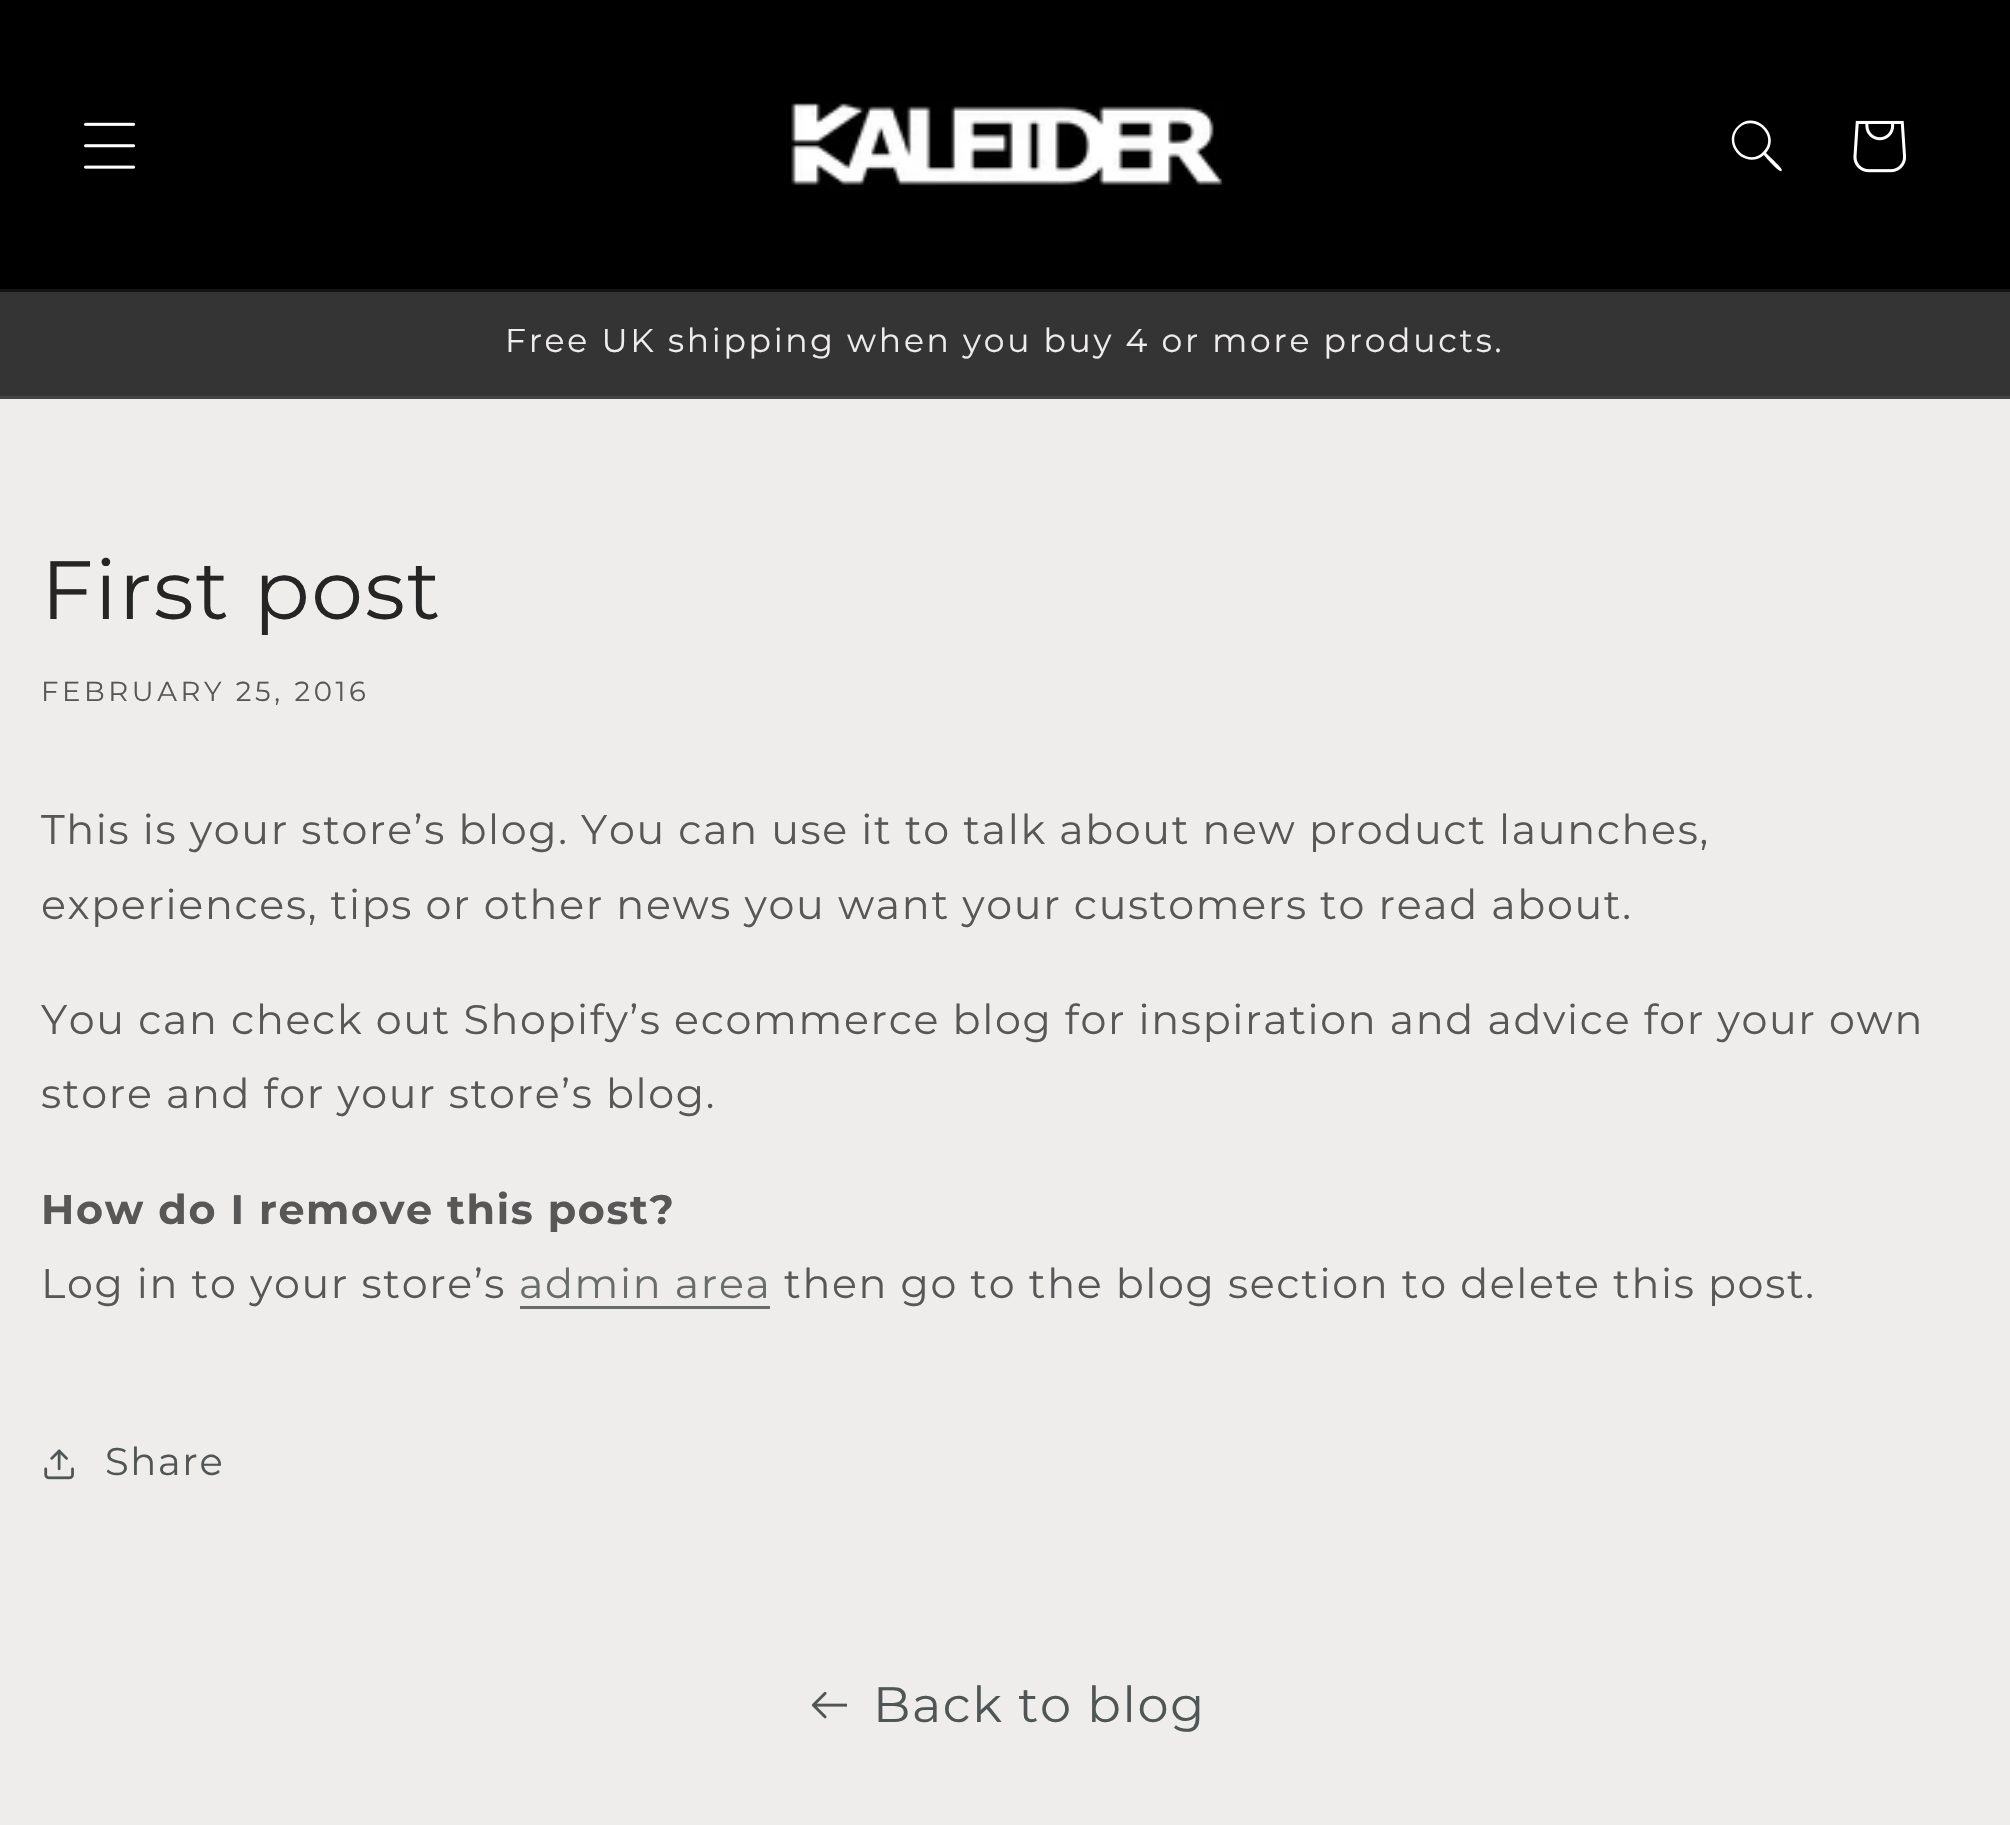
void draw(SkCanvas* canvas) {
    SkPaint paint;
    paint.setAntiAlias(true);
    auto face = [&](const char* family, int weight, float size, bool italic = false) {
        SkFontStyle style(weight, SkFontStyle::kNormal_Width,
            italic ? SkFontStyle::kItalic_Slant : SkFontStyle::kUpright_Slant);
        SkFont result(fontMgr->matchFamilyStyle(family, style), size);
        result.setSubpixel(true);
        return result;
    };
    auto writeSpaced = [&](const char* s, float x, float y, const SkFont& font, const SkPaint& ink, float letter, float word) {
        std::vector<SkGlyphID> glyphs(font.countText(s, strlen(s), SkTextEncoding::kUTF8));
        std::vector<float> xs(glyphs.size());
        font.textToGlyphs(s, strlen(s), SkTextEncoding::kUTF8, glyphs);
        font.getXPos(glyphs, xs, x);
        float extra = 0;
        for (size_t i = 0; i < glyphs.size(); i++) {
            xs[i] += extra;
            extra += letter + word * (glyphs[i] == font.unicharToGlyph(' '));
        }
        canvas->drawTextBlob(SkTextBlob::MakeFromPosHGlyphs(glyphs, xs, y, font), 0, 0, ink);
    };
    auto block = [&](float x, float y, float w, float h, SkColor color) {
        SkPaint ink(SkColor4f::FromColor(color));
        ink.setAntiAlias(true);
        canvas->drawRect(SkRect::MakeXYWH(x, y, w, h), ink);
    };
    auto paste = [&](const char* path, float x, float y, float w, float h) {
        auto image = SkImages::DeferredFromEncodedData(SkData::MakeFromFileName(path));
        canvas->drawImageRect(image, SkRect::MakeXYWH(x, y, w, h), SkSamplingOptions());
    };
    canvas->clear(SkColorSetRGB(239, 236, 236));
    block(0, 0, 2010, 289, SK_ColorBLACK);
    block(0, 289, 2010, 3, SkColorSetRGB(20, 20, 20));
    paste("pic1.png", 84, 122, 52, 47);
    paste("pic2.png", 791, 102, 433, 88);
    paint.setColor(SK_ColorWHITE);
    canvas->drawPath(SkPathBuilder(SkPathFillType::kEvenOdd).moveTo(1763, 152).cubicTo(1748, 168, 1724, 144, 1739, 128).cubicTo(1755, 113, 1779, 137, 1763, 152).close().moveTo(1764, 155).cubicTo(1745, 171, 1720, 143, 1738, 126).cubicTo(1755, 109, 1782, 135, 1766, 153).cubicTo(1768, 155, 1782, 168, 1782, 170).lineTo(1781, 171).cubicTo(1779, 172, 1766, 158, 1764, 155).close().detach(), paint);
    paste("pic3.png", 1853, 120, 54, 53);
    block(0, 292, 2010, 104, SkColorSetRGB(52, 52, 52));
    block(0, 396, 2010, 3, SkColorSetRGB(67, 67, 67));
    auto kFont1 = face("Montserrat", 400, 33);
    paint.setColor(SkColorSetRGB(239, 236, 236));
    writeSpaced("Free UK shipping when you buy 4 or more products.", 505, 352, kFont1, paint, 2.75f, 0);
    auto kFont2 = face("Montserrat", 400, 82.5f);
    paint.setColor(SkColorSetRGB(37, 37, 37));
    writeSpaced("First post", 41, 619, kFont2, paint, 1.65f, 0);
    auto kFont3 = face("Montserrat", 400, 27.5f);
    paint.setColor(SkColorSetRGB(88, 87, 87));
    writeSpaced("FEBRUARY 25, 2016", 41, 701, kFont3, paint, 3.6f, 0);
    auto kFont4 = face("Montserrat", 400, 41.25f);
    writeSpaced("This is your store’s blog. You can use it to talk about new product launches,", 41, 844, kFont4, paint, 1.65f, 0);
    writeSpaced("experiences, tips or other news you want your customers to read about.", 41, 919, kFont4, paint, 1.65f, 0);
    writeSpaced("You can check out Shopify’s ecommerce blog for inspiration and advice for your own", 41, 1034, kFont4, paint, 1.65f, 0);
    writeSpaced("store and for your store’s blog.", 41, 1108, kFont4, paint, 1.65f, 0);
    auto kFont5 = face("Montserrat", 700, 41.25f);
    writeSpaced("How do I remove this post?", 41, 1224, kFont5, paint, 1.65f, 0);
    writeSpaced("Log in to your store’s", 41, 1298, kFont4, paint, 1.65f, 0);
    paint.setColor(SkColorSetRGB(104, 109, 108));
    writeSpaced("admin area", 519, 1298, kFont4, paint, 1.65f, 0);
    block(520, 1306, 250, 3, SkColorSetRGB(104, 109, 108));
    paint.setColor(SkColorSetRGB(88, 87, 87));
    writeSpaced("then go to the blog section to delete this post.", 784, 1298, kFont4, paint, 1.65f, 0);
    paste("pic4.png", 44, 1449, 30, 31);
    auto kFont6 = face("Montserrat", 400, 38.5f);
    paint.setColor(SkColorSetRGB(80, 86, 85));
    writeSpaced("Share", 105, 1475, kFont6, paint, 1.65f, 0);
    paste("pic5.png", 811, 1691, 36, 28);
    auto kFont7 = face("Montserrat", 400, 49.5f);
    writeSpaced("Back to blog", 873, 1722, kFont7, paint, 1.65f, 0);
}
